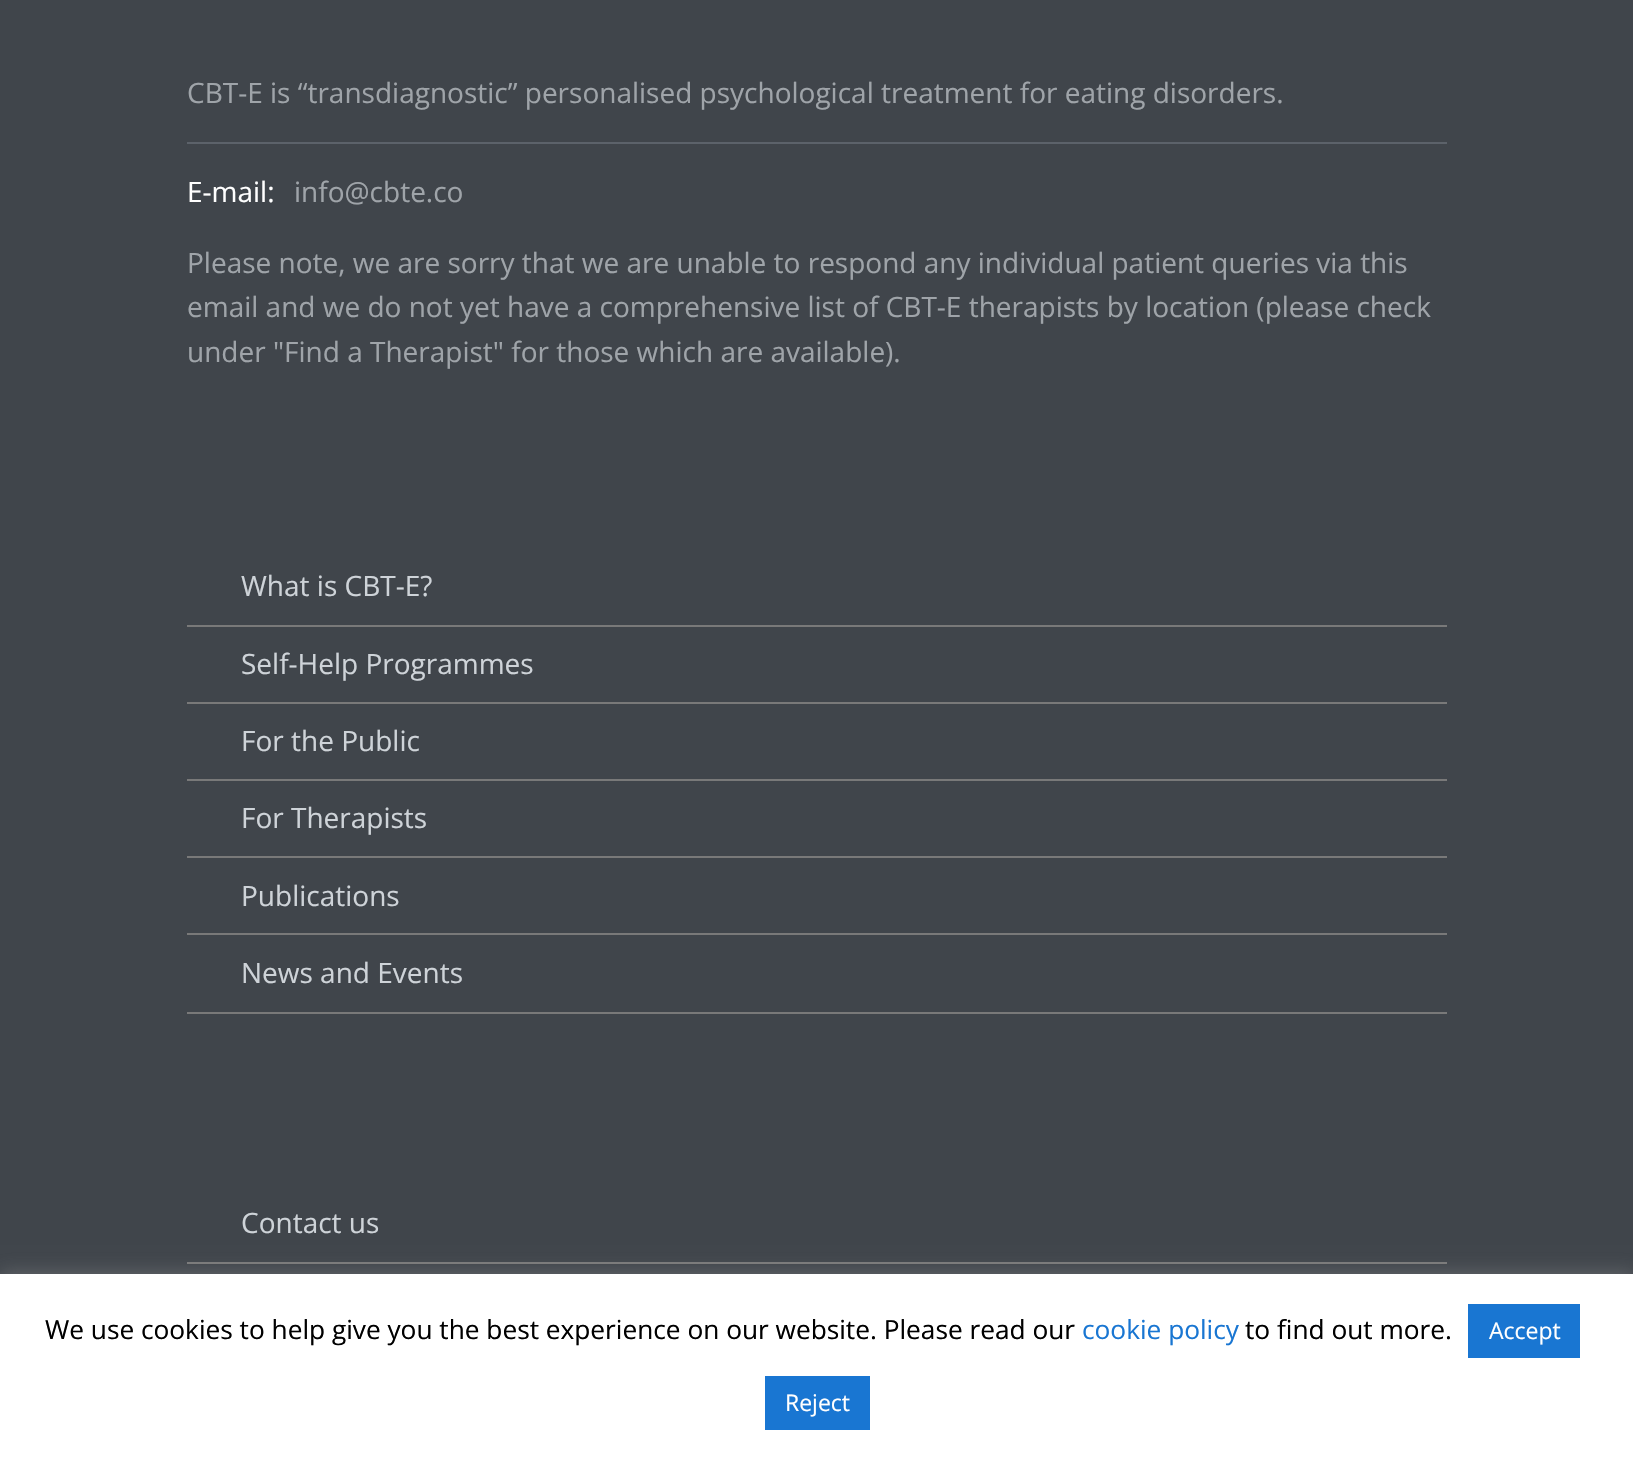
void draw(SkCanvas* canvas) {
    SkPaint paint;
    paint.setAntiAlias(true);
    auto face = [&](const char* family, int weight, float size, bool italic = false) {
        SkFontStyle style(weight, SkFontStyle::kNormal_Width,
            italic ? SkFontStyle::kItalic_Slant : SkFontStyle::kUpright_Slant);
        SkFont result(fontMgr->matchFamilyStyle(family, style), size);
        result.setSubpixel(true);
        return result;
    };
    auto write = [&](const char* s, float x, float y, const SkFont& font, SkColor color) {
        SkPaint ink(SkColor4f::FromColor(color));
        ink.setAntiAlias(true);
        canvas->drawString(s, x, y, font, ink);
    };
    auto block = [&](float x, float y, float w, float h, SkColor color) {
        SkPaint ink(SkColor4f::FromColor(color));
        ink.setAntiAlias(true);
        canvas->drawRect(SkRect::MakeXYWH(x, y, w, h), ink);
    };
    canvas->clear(SkColorSetRGB(64, 69, 75));
    auto kFont1 = face("Open Sans", 400, 28);
    write("CBT-E is “transdiagnostic” personalised psychological treatment for eating disorders.", 187, 103, kFont1, SkColorSetRGB(159, 164, 169));
    block(187, 142, 1260, 2, SkColorSetRGB(92, 98, 106));
    write("E-mail:", 187, 202, kFont1, SK_ColorWHITE);
    write("info@cbte.co", 294, 202, kFont1, SkColorSetRGB(159, 164, 169));
    write("Please note, we are sorry that we are unable to respond any individual patient queries via this", 187, 273, kFont1, SkColorSetRGB(159, 164, 169));
    write("email and we do not yet have a comprehensive list of CBT-E therapists by location (please check", 187, 317, kFont1, SkColorSetRGB(159, 164, 169));
    write("under \"Find a Therapist\" for those which are available).", 187, 362, kFont1, SkColorSetRGB(159, 164, 169));
    block(187, 625, 1260, 2, SkColorSetRGB(121, 121, 121));
    write("What is CBT-E?", 241, 596, kFont1, SkColorSetRGB(206, 211, 216));
    block(187, 702, 1260, 2, SkColorSetRGB(121, 121, 121));
    write("Self-Help Programmes", 241, 674, kFont1, SkColorSetRGB(206, 211, 216));
    block(187, 779, 1260, 2, SkColorSetRGB(121, 121, 121));
    write("For the Public", 241, 751, kFont1, SkColorSetRGB(206, 211, 216));
    block(187, 856, 1260, 2, SkColorSetRGB(121, 121, 121));
    write("For Therapists", 241, 828, kFont1, SkColorSetRGB(206, 211, 216));
    block(187, 933, 1260, 2, SkColorSetRGB(121, 121, 121));
    write("Publications", 241, 906, kFont1, SkColorSetRGB(206, 211, 216));
    block(187, 1012, 1260, 2, SkColorSetRGB(121, 121, 121));
    write("News and Events", 241, 983, kFont1, SkColorSetRGB(206, 211, 216));
    block(187, 1262, 1260, 2, SkColorSetRGB(121, 121, 121));
    write("Contact us", 241, 1233, kFont1, SkColorSetRGB(206, 211, 216));
    paint.setColor(SkColorSetARGB(77, 172, 171, 171));
    paint.setMaskFilter(SkMaskFilter::MakeBlur(kNormal_SkBlurStyle, 9));
    canvas->drawRect(SkRect::MakeXYWH(0, 1272, 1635, 186), paint);
    paint.setMaskFilter(nullptr);
    block(0, 1274, 1633, 185, SK_ColorWHITE);
    auto kFont2 = face("Open Sans", 400, 26.25f);
    write("We use cookies to help give you the best experience on our website. Please read our", 45, 1339, kFont2, SK_ColorBLACK);
    write("cookie policy", 1082, 1339, kFont2, SkColorSetRGB(25, 118, 210));
    write("to find out more.", 1245, 1339, kFont2, SK_ColorBLACK);
    block(1468, 1304, 112, 54, SkColorSetRGB(25, 118, 210));
    auto kFont3 = face("Open Sans", 400, 23);
    write("Accept", 1489, 1339, kFont3, SK_ColorWHITE);
    block(765, 1376, 105, 54, SkColorSetRGB(25, 118, 210));
    write("Reject", 785, 1411, kFont3, SK_ColorWHITE);
}
